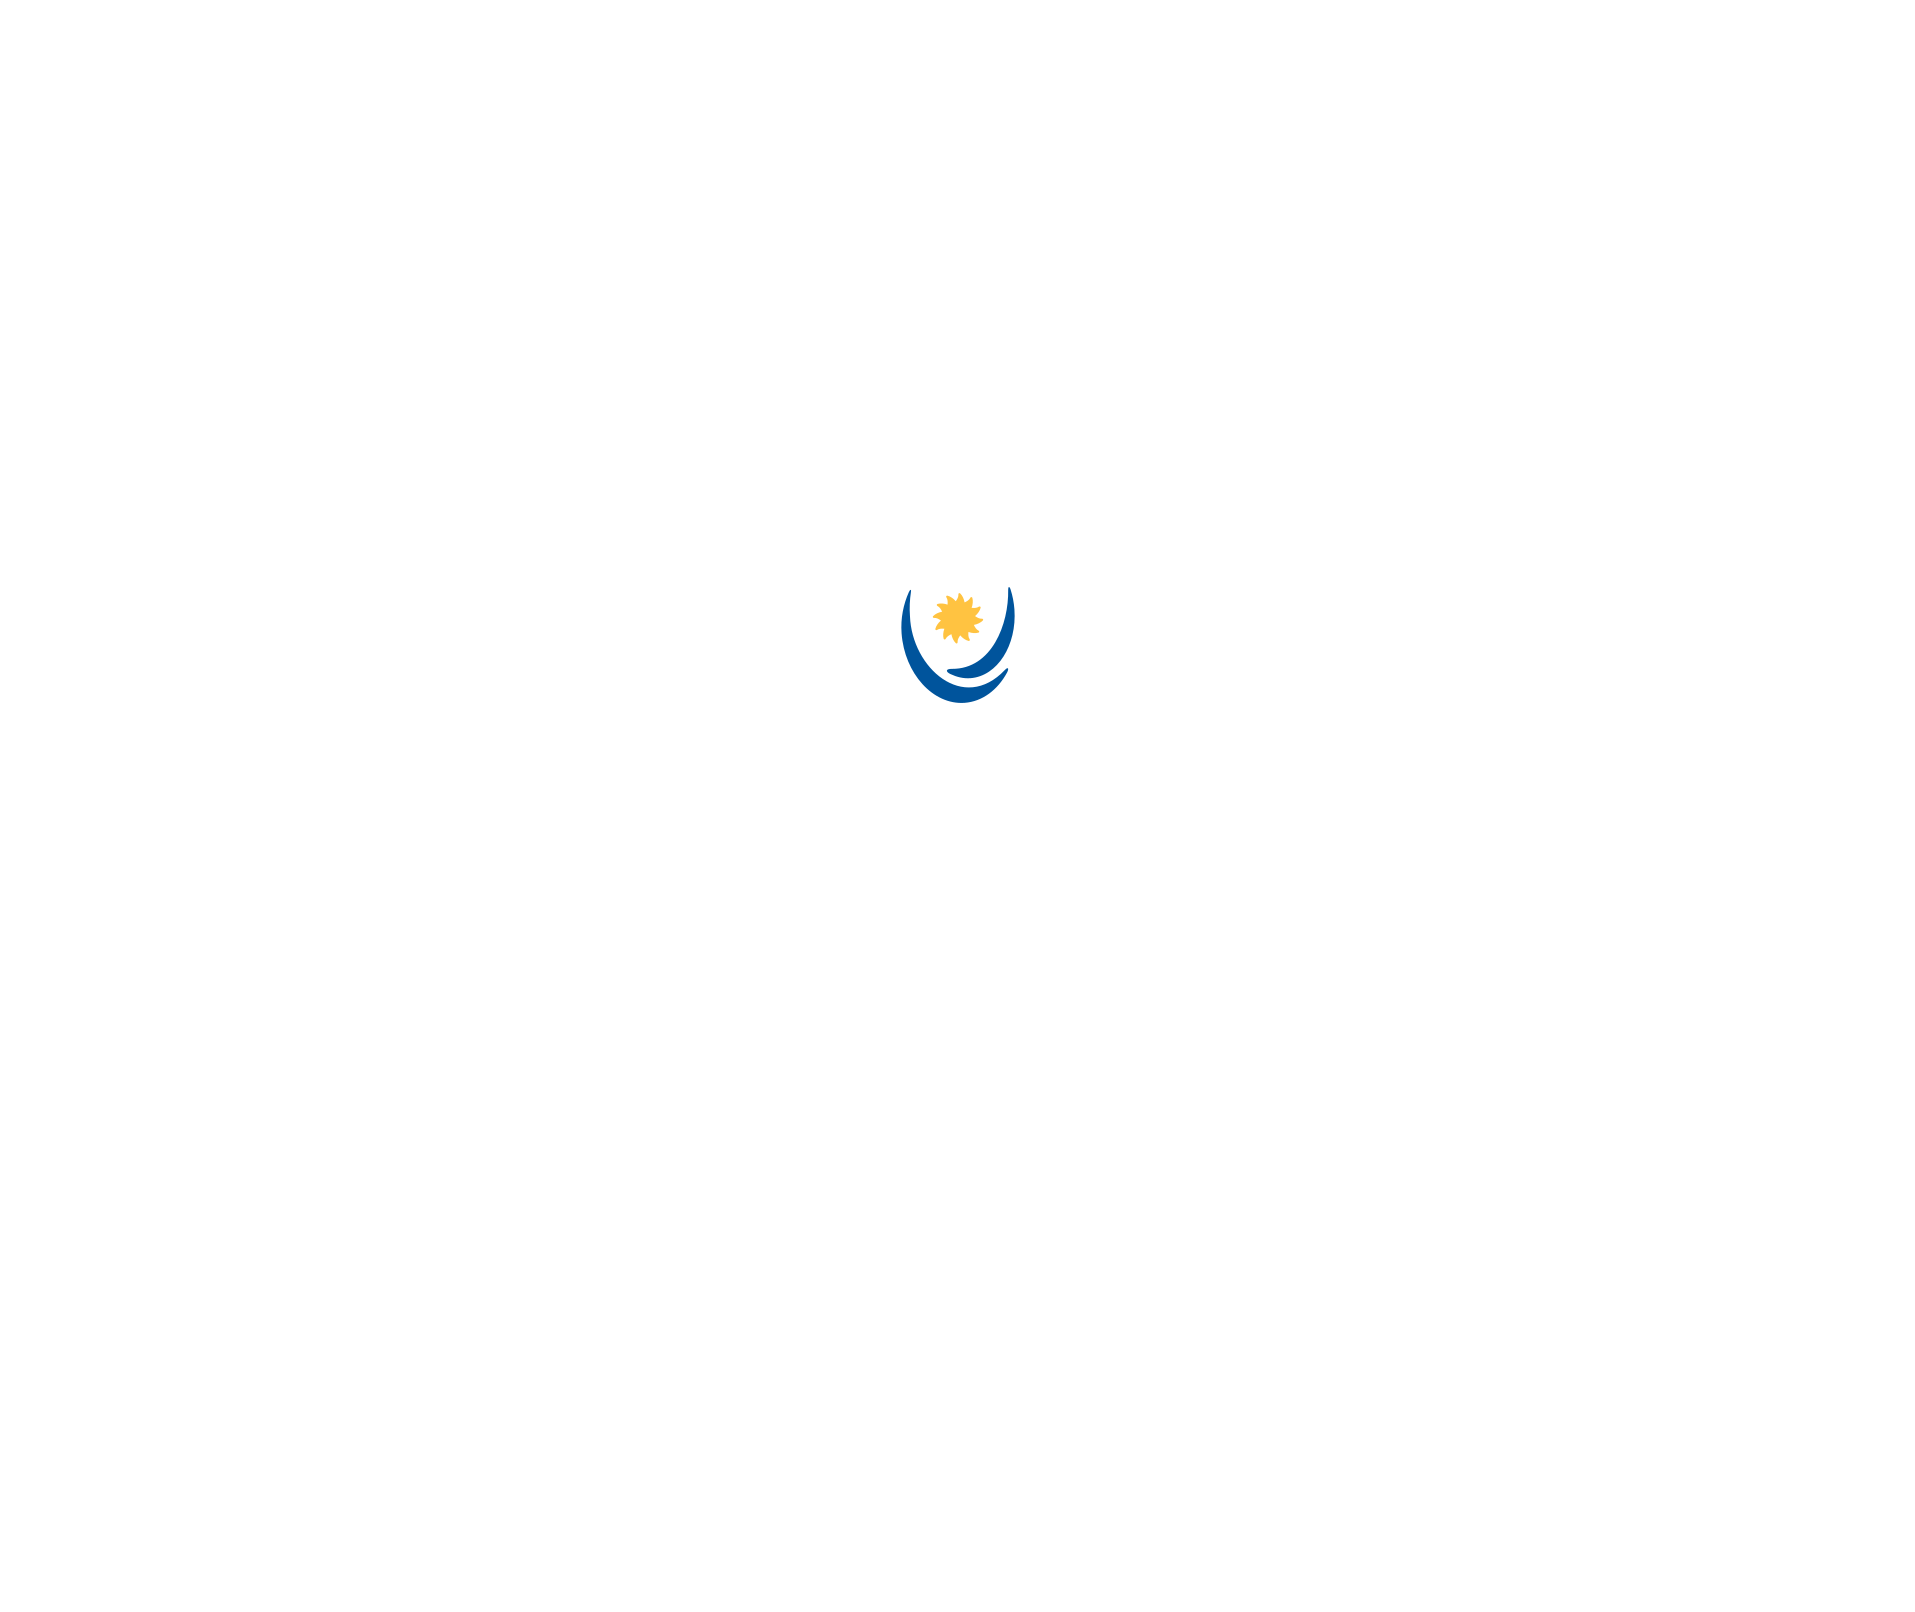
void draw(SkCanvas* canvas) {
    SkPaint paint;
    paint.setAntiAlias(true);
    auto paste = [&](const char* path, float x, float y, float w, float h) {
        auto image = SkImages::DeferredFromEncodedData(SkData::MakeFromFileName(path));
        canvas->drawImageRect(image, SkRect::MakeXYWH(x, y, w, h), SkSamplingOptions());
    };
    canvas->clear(SK_ColorWHITE);
    paste("pic1.png", 901, 587, 114, 116);
}
